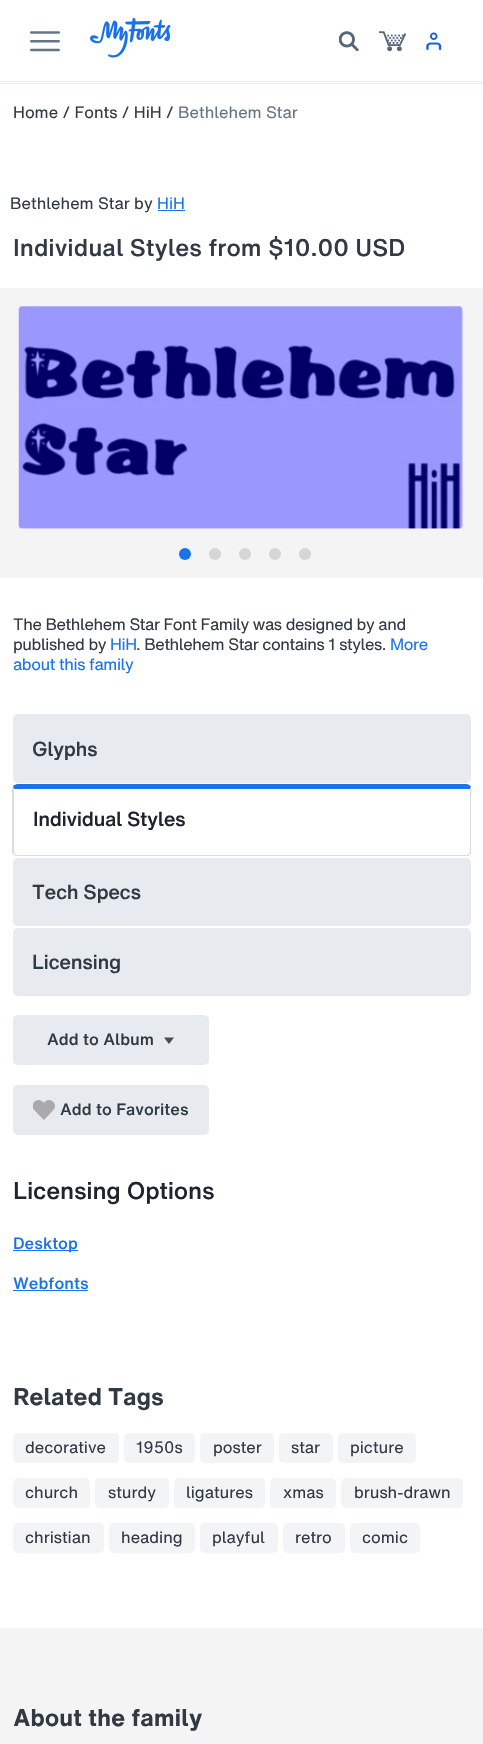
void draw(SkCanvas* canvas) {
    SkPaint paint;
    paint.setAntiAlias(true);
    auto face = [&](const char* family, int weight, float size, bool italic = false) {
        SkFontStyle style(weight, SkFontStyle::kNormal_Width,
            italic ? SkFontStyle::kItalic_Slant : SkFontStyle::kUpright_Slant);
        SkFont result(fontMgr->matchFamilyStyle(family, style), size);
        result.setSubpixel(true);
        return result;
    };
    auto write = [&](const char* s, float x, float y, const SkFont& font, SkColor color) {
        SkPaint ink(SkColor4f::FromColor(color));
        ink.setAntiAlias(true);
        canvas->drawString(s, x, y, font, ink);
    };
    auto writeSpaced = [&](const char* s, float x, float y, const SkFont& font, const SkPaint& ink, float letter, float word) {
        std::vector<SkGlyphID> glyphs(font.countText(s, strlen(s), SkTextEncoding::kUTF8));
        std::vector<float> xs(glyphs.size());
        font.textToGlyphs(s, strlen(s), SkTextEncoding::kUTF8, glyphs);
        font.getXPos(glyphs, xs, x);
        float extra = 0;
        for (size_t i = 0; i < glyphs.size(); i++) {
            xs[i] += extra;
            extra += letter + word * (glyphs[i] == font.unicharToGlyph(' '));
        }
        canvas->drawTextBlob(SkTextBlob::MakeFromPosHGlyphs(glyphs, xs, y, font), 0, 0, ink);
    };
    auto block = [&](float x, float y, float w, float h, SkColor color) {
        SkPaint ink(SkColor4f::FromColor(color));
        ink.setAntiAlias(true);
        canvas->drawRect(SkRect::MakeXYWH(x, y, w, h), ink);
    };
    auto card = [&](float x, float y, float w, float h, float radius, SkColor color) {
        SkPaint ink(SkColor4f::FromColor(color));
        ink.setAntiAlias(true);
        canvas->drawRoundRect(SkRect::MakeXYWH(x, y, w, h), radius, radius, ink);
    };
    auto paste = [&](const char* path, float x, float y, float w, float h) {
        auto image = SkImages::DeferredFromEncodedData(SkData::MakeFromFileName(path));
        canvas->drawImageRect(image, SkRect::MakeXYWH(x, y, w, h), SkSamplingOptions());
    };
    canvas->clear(SK_ColorWHITE);
    block(0, 83, 483, 1, SkColorSetRGB(231, 234, 238));
    block(0, 81, 483, 1, SkColorSetRGB(231, 234, 238));
    paste("pic1.png", 30, 31, 30, 21);
    paste("pic2.png", 90, 18, 81, 40);
    paste("pic3.png", 339, 31, 20, 20);
    paste("pic4.png", 379, 31, 27, 20);
    paste("pic5.png", 426, 32, 16, 18);
    auto kFont1 = face("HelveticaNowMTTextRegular", 400, 16.25f);
    write("Home / Fonts / HiH /", 13, 118, kFont1, SkColorSetRGB(49, 57, 69));
    write("Bethlehem Star", 178, 118, kFont1, SkColorSetRGB(102, 116, 136));
    auto kFont2 = face("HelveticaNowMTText", 400, 16.25f);
    write("Bethlehem Star by", 10, 209, kFont2, SkColorSetRGB(49, 57, 69));
    write("HiH", 157, 209, kFont2, SkColorSetRGB(26, 115, 232));
    block(158, 210, 27, 1, SkColorSetRGB(26, 115, 232));
    auto kFont3 = face("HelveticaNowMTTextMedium", 500, 23.75f);
    write("Individual Styles from $10.00 USD", 13, 256, kFont3, SkColorSetRGB(49, 57, 69));
    block(0, 288, 483, 290, SkColorSetRGB(244, 244, 244));
    paste("pic6.png", 18, 306, 445, 223);
    paint.setColor(SkColorSetRGB(26, 115, 232));
    canvas->drawCircle(185, 554, 6, paint);
    paint.setColor(SkColorSetRGB(214, 214, 214));
    canvas->drawCircle(215, 554, 6, paint);
    canvas->drawCircle(245, 554, 6, paint);
    canvas->drawCircle(275, 554, 6, paint);
    canvas->drawCircle(305, 554, 6, paint);
    paint.setColor(SkColorSetRGB(49, 57, 69));
    writeSpaced("The Bethlehem Star Font Family was designed by and", 13, 630, kFont1, paint, -0.4f, 0);
    writeSpaced("published by", 13, 650, kFont1, paint, -0.4f, 0);
    paint.setColor(SkColorSetRGB(26, 115, 232));
    writeSpaced("HiH", 110, 650, kFont1, paint, -0.4f, 0);
    paint.setColor(SkColorSetRGB(49, 57, 69));
    writeSpaced(". Bethlehem Star contains 1 styles.", 136, 650, kFont1, paint, -0.4f, 0);
    paint.setColor(SkColorSetRGB(26, 115, 232));
    writeSpaced("More", 390, 650, kFont1, paint, -0.4f, 0);
    writeSpaced("about this family", 13, 670, kFont1, paint, -0.4f, 0);
    card(13, 714, 458, 69, 5, SkColorSetRGB(231, 234, 238));
    auto kFont4 = face("HelveticaNowMTTextMedium", 500, 20);
    paint.setColor(SkColorSetRGB(49, 57, 69));
    writeSpaced("Glyphs", 32, 756, kFont4, paint, -0.4f, 0);
    paint.setColor(SkColorSetRGB(26, 115, 232));
    canvas->drawPath(SkPathBuilder().moveTo(18, 784).cubicTo(16, 784, 14, 785, 13, 786).lineTo(14, 790).lineTo(14, 789).lineTo(470, 789).lineTo(471, 787).cubicTo(470, 785, 468, 784, 466, 784).close().detach(), paint);
    paint.setColor(SkColorSetRGB(221, 221, 221));
    canvas->drawPath(SkPathBuilder().moveTo(471, 787).cubicTo(472, 791, 471, 795, 471, 799).lineTo(471, 852).lineTo(470, 855).lineTo(469, 854).lineTo(470, 851).lineTo(470, 789).close().detach(), paint);
    canvas->drawPath(SkPathBuilder().moveTo(470, 855).cubicTo(469, 856, 468, 856, 466, 856).lineTo(18, 856).cubicTo(17, 856, 15, 856, 14, 855).lineTo(15, 854).cubicTo(16, 855, 17, 855, 18, 855).lineTo(466, 855).cubicTo(467, 855, 468, 854, 469, 854).close().detach(), paint);
    canvas->drawPath(SkPathBuilder().moveTo(12, 787).lineTo(13, 786).lineTo(14, 790).lineTo(14, 851).cubicTo(14, 852, 14, 853, 15, 854).lineTo(14, 855).lineTo(12, 853).close().detach(), paint);
    paint.setColor(SkColorSetRGB(30, 36, 44));
    writeSpaced("Individual Styles", 33, 826, kFont4, paint, -0.4f, 0);
    card(13, 858, 458, 68, 5, SkColorSetRGB(231, 234, 238));
    paint.setColor(SkColorSetRGB(49, 57, 69));
    writeSpaced("Tech Specs", 32, 899, kFont4, paint, -0.4f, 0);
    card(13, 928, 458, 68, 5, SkColorSetRGB(231, 234, 238));
    writeSpaced("Licensing", 32, 969, kFont4, paint, -0.4f, 0);
    card(13, 1015, 196, 50, 5, SkColorSetRGB(231, 234, 238));
    auto kFont5 = face("HelveticaNowMTTextMedium", 500, 16.25f);
    write("Add to Album", 47, 1045, kFont5, SkColorSetRGB(49, 57, 69));
    paint.setColor(SkColorSetRGB(74, 74, 74));
    canvas->drawPath(SkPathBuilder().moveTo(164, 1037.5f).lineTo(174, 1037.5f).lineTo(169, 1044).close().detach(), paint);
    card(13, 1085, 196, 50, 5, SkColorSetRGB(231, 234, 238));
    paste("pic7.png", 33, 1100, 22, 20);
    write("Add to Favorites", 60, 1115, kFont5, SkColorSetRGB(49, 57, 69));
    paint.setColor(SkColorSetRGB(30, 36, 44));
    writeSpaced("Licensing Options", 13, 1199, kFont3, paint, -0.25f, 0);
    block(13, 1250, 65, 1, SkColorSetRGB(26, 115, 232));
    write("Desktop", 13, 1249, kFont5, SkColorSetRGB(26, 115, 232));
    write("Webfonts", 13, 1289, kFont5, SkColorSetRGB(26, 115, 232));
    block(13, 1290, 75, 1, SkColorSetRGB(26, 115, 232));
    auto kFont6 = face("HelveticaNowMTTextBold", 700, 23.75f);
    paint.setColor(SkColorSetRGB(49, 57, 69));
    writeSpaced("Related Tags", 13, 1405, kFont6, paint, -0.25f, 0);
    card(13, 1433, 106, 30, 5, SkColorSetRGB(243, 244, 246));
    write("decorative", 25, 1453, kFont2, SkColorSetRGB(49, 57, 69));
    card(124, 1433, 71, 30, 5, SkColorSetRGB(243, 244, 246));
    write("1950s", 136, 1453, kFont2, SkColorSetRGB(49, 57, 69));
    card(200, 1433, 74, 30, 5, SkColorSetRGB(243, 244, 246));
    write("poster", 213, 1453, kFont2, SkColorSetRGB(49, 57, 69));
    card(279, 1433, 54, 30, 5, SkColorSetRGB(243, 244, 246));
    write("star", 291, 1453, kFont2, SkColorSetRGB(49, 57, 69));
    card(338, 1433, 78, 30, 5, SkColorSetRGB(243, 244, 246));
    write("picture", 350, 1453, kFont2, SkColorSetRGB(49, 57, 69));
    card(13, 1478, 77, 30, 5, SkColorSetRGB(243, 244, 246));
    write("church", 25, 1498, kFont2, SkColorSetRGB(49, 57, 69));
    card(95, 1478, 74, 30, 5, SkColorSetRGB(243, 244, 246));
    write("sturdy", 108, 1498, kFont2, SkColorSetRGB(49, 57, 69));
    card(174, 1478, 91, 30, 5, SkColorSetRGB(243, 244, 246));
    write("ligatures", 186, 1498, kFont2, SkColorSetRGB(49, 57, 69));
    card(270, 1478, 66, 30, 5, SkColorSetRGB(243, 244, 246));
    write("xmas", 283, 1498, kFont2, SkColorSetRGB(49, 57, 69));
    card(341, 1478, 122, 30, 5, SkColorSetRGB(243, 244, 246));
    write("brush-drawn", 354, 1498, kFont2, SkColorSetRGB(49, 57, 69));
    card(13, 1523, 91, 30, 5, SkColorSetRGB(243, 244, 246));
    write("christian", 25, 1543, kFont2, SkColorSetRGB(49, 57, 69));
    card(109, 1523, 86, 30, 5, SkColorSetRGB(243, 244, 246));
    write("heading", 121, 1543, kFont2, SkColorSetRGB(49, 57, 69));
    card(200, 1523, 78, 30, 5, SkColorSetRGB(243, 244, 246));
    write("playful", 212, 1543, kFont2, SkColorSetRGB(49, 57, 69));
    card(283, 1523, 62, 30, 5, SkColorSetRGB(243, 244, 246));
    write("retro", 295, 1543, kFont2, SkColorSetRGB(49, 57, 69));
    card(350, 1523, 70, 30, 5, SkColorSetRGB(243, 244, 246));
    write("comic", 362, 1543, kFont2, SkColorSetRGB(49, 57, 69));
    block(0, 1628, 483, 116, SkColorSetRGB(244, 244, 244));
    auto kFont7 = face("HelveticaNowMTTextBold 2", 700, 23.75f);
    writeSpaced("About the family", 13, 1726, kFont7, paint, -0.25f, 0);
}
